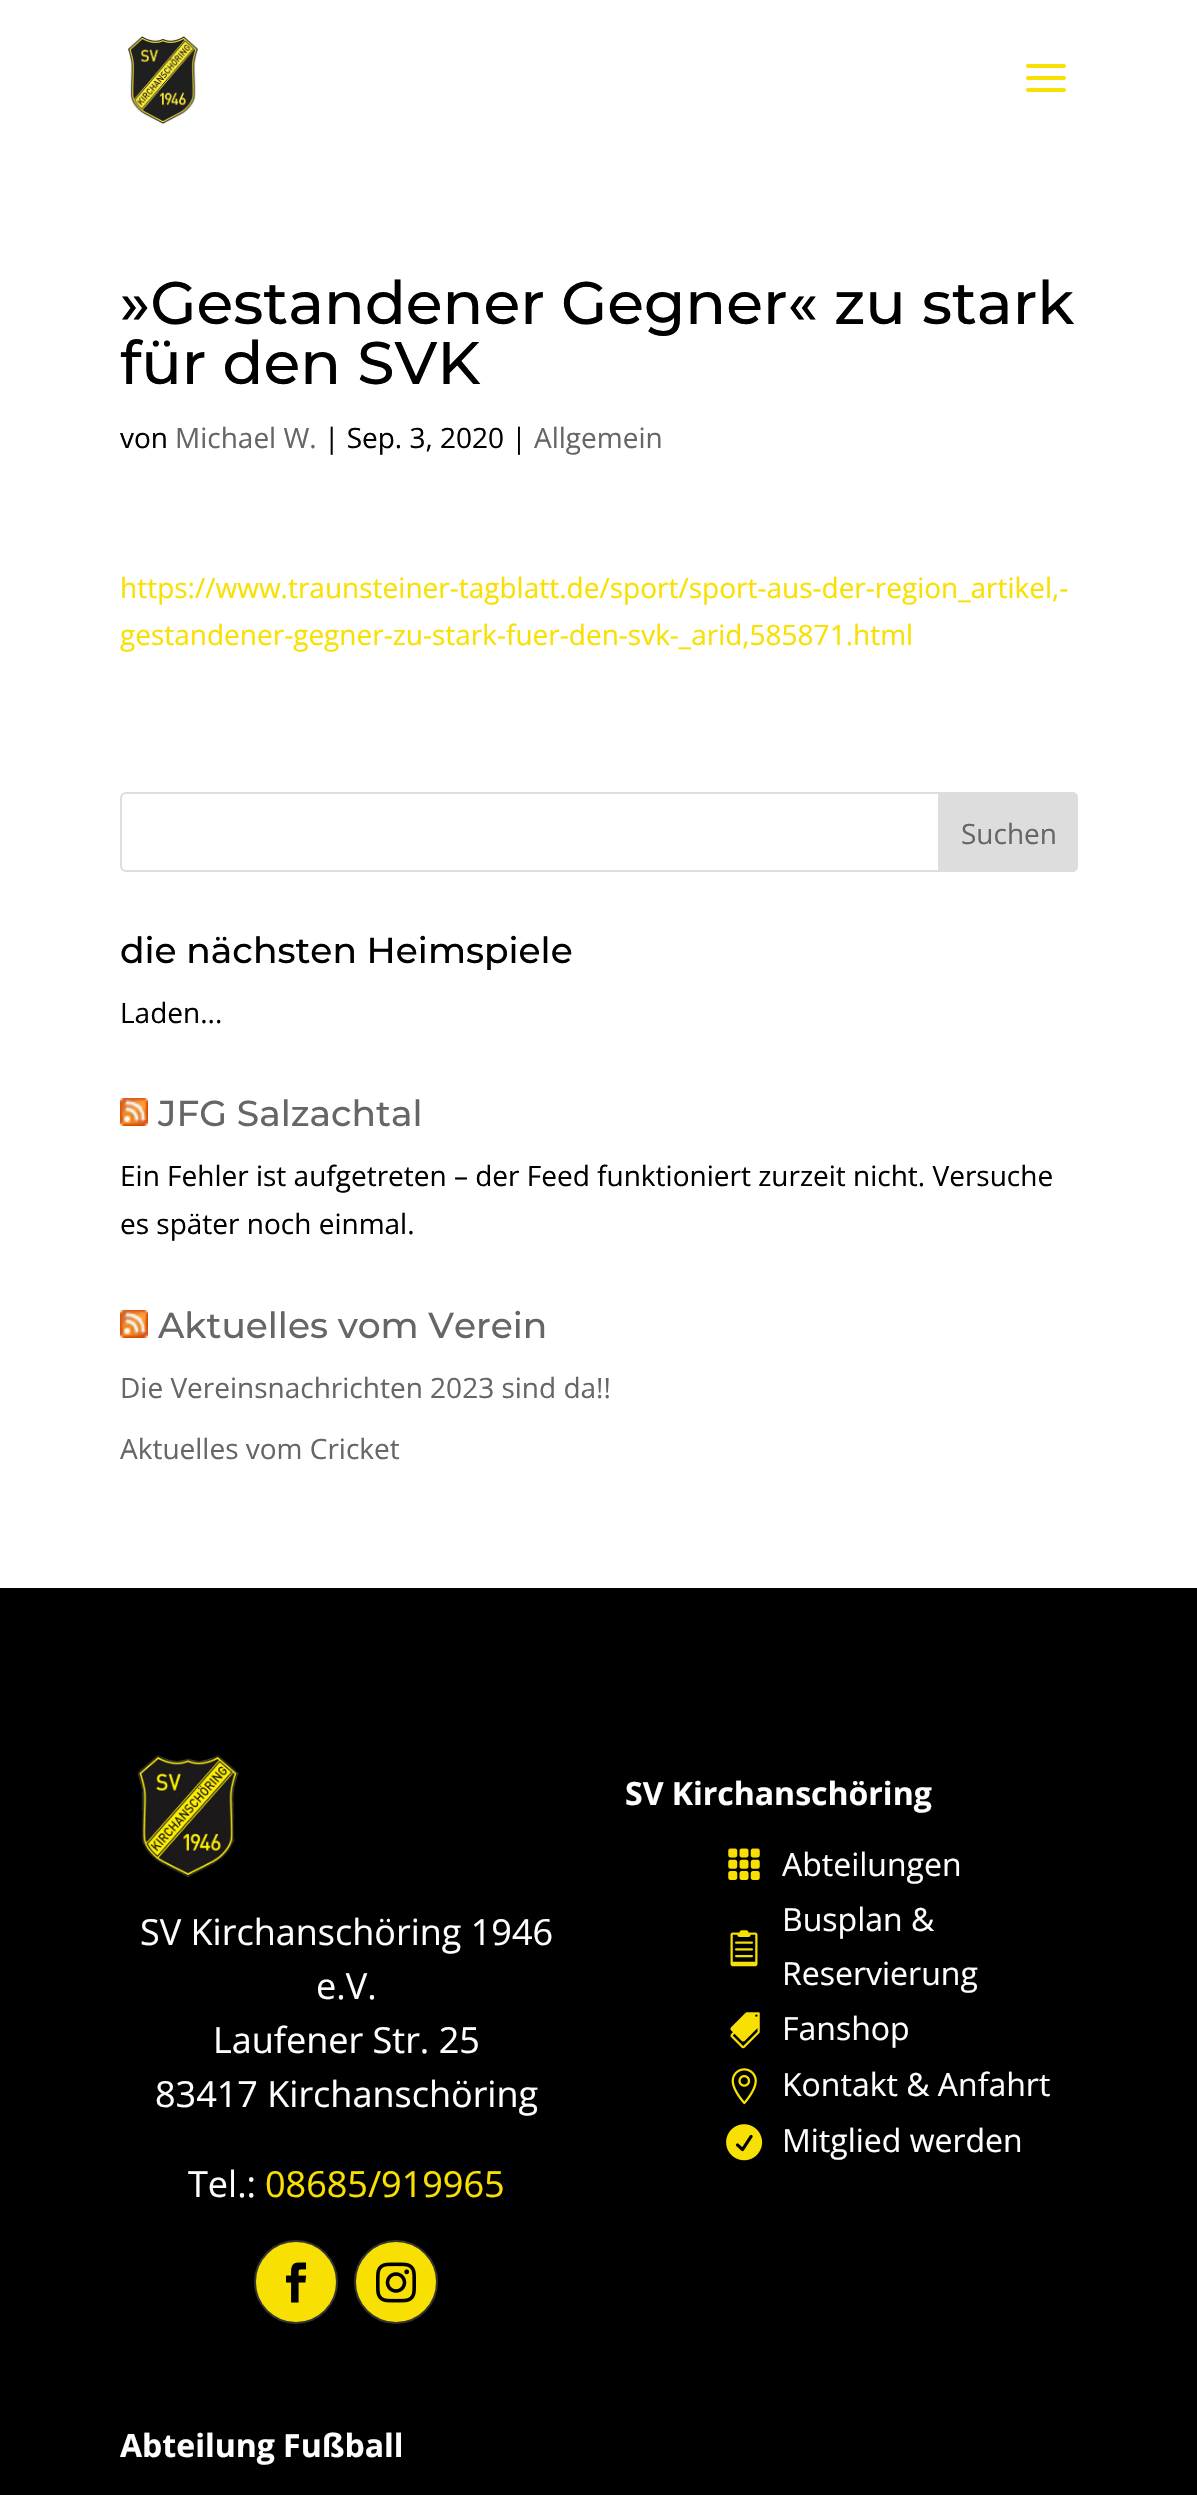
void draw(SkCanvas* canvas) {
    SkPaint paint;
    paint.setAntiAlias(true);
    auto face = [&](const char* family, int weight, float size, bool italic = false) {
        SkFontStyle style(weight, SkFontStyle::kNormal_Width,
            italic ? SkFontStyle::kItalic_Slant : SkFontStyle::kUpright_Slant);
        SkFont result(fontMgr->matchFamilyStyle(family, style), size);
        result.setSubpixel(true);
        return result;
    };
    auto write = [&](const char* s, float x, float y, const SkFont& font, SkColor color) {
        SkPaint ink(SkColor4f::FromColor(color));
        ink.setAntiAlias(true);
        canvas->drawString(s, x, y, font, ink);
    };
    auto block = [&](float x, float y, float w, float h, SkColor color) {
        SkPaint ink(SkColor4f::FromColor(color));
        ink.setAntiAlias(true);
        canvas->drawRect(SkRect::MakeXYWH(x, y, w, h), ink);
    };
    auto paste = [&](const char* path, float x, float y, float w, float h) {
        auto image = SkImages::DeferredFromEncodedData(SkData::MakeFromFileName(path));
        canvas->drawImageRect(image, SkRect::MakeXYWH(x, y, w, h), SkSamplingOptions());
    };
    canvas->clear(SK_ColorWHITE);
    paste("pic1.png", 128, 36, 70, 88);
    paste("pic2.png", 1026, 64, 40, 28);
    auto kFont1 = face("Montserrat", 500, 60);
    write("»Gestandener Gegner« zu stark", 120, 324, kFont1, SK_ColorBLACK);
    write("für den SVK", 120, 384, kFont1, SK_ColorBLACK);
    auto kFont2 = face("Open Sans", 400, 28);
    write("von", 120, 448, kFont2, SK_ColorBLACK);
    write("Michael W.", 175, 448, kFont2, SkColorSetRGB(102, 102, 102));
    write("| Sep. 3, 2020 |", 324, 448, kFont2, SK_ColorBLACK);
    write("Allgemein", 534, 448, kFont2, SkColorSetRGB(102, 102, 102));
    write("https://www.traunsteiner-tagblatt.de/sport/sport-aus-der-region_artikel,-", 120, 598, kFont2, SkColorSetRGB(249, 224, 3));
    write("gestandener-gegner-zu-stark-fuer-den-svk-_arid,585871.html", 120, 645, kFont2, SkColorSetRGB(249, 224, 3));
    paint.setStyle(SkPaint::kStroke_Style);
    paint.setStrokeWidth(2);
    paint.setColor(SkColorSetRGB(221, 221, 221));
    canvas->drawRoundRect(SkRect::MakeXYWH(121, 793, 956, 78), 5, 5, paint);
    paint.setStyle(SkPaint::kFill_Style);
    canvas->drawPath(SkPathBuilder().moveTo(939, 793).lineTo(1072, 793).cubicTo(1075, 793, 1077, 795, 1077, 798).lineTo(1077, 866).cubicTo(1077, 869, 1075, 871, 1072, 871).lineTo(939, 871).close().detach(), paint);
    paint.setStyle(SkPaint::kStroke_Style);
    canvas->drawPath(SkPathBuilder().moveTo(939, 793).lineTo(1072, 793).cubicTo(1075, 793, 1077, 795, 1077, 798).lineTo(1077, 866).cubicTo(1077, 869, 1075, 871, 1072, 871).lineTo(939, 871).close().detach(), paint);
    write("Suchen", 961, 844, kFont2, SkColorSetRGB(102, 102, 102));
    auto kFont3 = face("Montserrat", 500, 36);
    write("die nächsten Heimspiele", 120, 963, kFont3, SK_ColorBLACK);
    write("Laden...", 120, 1023, kFont2, SK_ColorBLACK);
    paste("pic3.png", 120, 1098, 28, 28);
    write("JFG Salzachtal", 158, 1126, kFont3, SkColorSetRGB(102, 102, 102));
    write("Ein Fehler ist aufgetreten – der Feed funktioniert zurzeit nicht. Versuche", 120, 1186, kFont2, SK_ColorBLACK);
    write("es später noch einmal.", 120, 1234, kFont2, SK_ColorBLACK);
    paste("pic3.png", 120, 1310, 28, 28);
    write("Aktuelles vom Verein", 158, 1338, kFont3, SkColorSetRGB(102, 102, 102));
    write("Die Vereinsnachrichten 2023 sind da!!", 120, 1398, kFont2, SkColorSetRGB(102, 102, 102));
    write("Aktuelles vom Cricket", 120, 1459, kFont2, SkColorSetRGB(102, 102, 102));
    block(0, 1588, 1197, 907, SK_ColorBLACK);
    paste("pic4.png", 137, 1755, 102, 122);
    auto kFont4 = face("Open Sans", 400, 36);
    write("SV Kirchanschöring 1946", 140, 1945, kFont4, SK_ColorWHITE);
    write("e.V.", 316, 1999, kFont4, SK_ColorWHITE);
    write("Laufener Str. 25", 213, 2053, kFont4, SK_ColorWHITE);
    write("83417 Kirchanschöring", 155, 2107, kFont4, SK_ColorWHITE);
    write("Tel.:", 188, 2197, kFont4, SK_ColorWHITE);
    write("08685/919965", 265, 2197, kFont4, SkColorSetRGB(249, 224, 3));
    paint.setStyle(SkPaint::kFill_Style);
    paint.setColor(SkColorSetRGB(249, 224, 3));
    canvas->drawCircle(296, 2282, 41, paint);
    paint.setStyle(SkPaint::kStroke_Style);
    paint.setColor(SkColorSetRGB(51, 51, 51));
    canvas->drawCircle(296, 2282, 41, paint);
    paste("pic5.png", 286, 2262, 21, 41);
    paint.setStyle(SkPaint::kFill_Style);
    paint.setColor(SkColorSetRGB(249, 224, 3));
    canvas->drawCircle(396, 2282, 41, paint);
    paint.setStyle(SkPaint::kStroke_Style);
    paint.setColor(SkColorSetRGB(51, 51, 51));
    canvas->drawCircle(396, 2282, 41, paint);
    paste("pic6.png", 376, 2262, 40, 41);
    auto kFont5 = face("Open Sans", 700, 32);
    write("SV Kirchanschöring", 625, 1805, kFont5, SK_ColorWHITE);
    paste("pic7.png", 728, 1848, 32, 32);
    auto kFont6 = face("Open Sans", 400, 32);
    write("Abteilungen", 782, 1876, kFont6, SK_ColorWHITE);
    paste("pic8.png", 730, 1930, 28, 37);
    write("Busplan &", 782, 1931, kFont6, SK_ColorWHITE);
    write("Reservierung", 782, 1985, kFont6, SK_ColorWHITE);
    paste("pic9.png", 730, 2012, 30, 37);
    write("Fanshop", 782, 2040, kFont6, SK_ColorWHITE);
    paste("pic10.png", 731, 2068, 26, 37);
    write("Kontakt & Anfahrt", 782, 2096, kFont6, SK_ColorWHITE);
    paste("pic11.png", 726, 2124, 37, 37);
    write("Mitglied werden", 782, 2152, kFont6, SK_ColorWHITE);
    write("Abteilung Fußball", 120, 2457, kFont5, SK_ColorWHITE);
}
